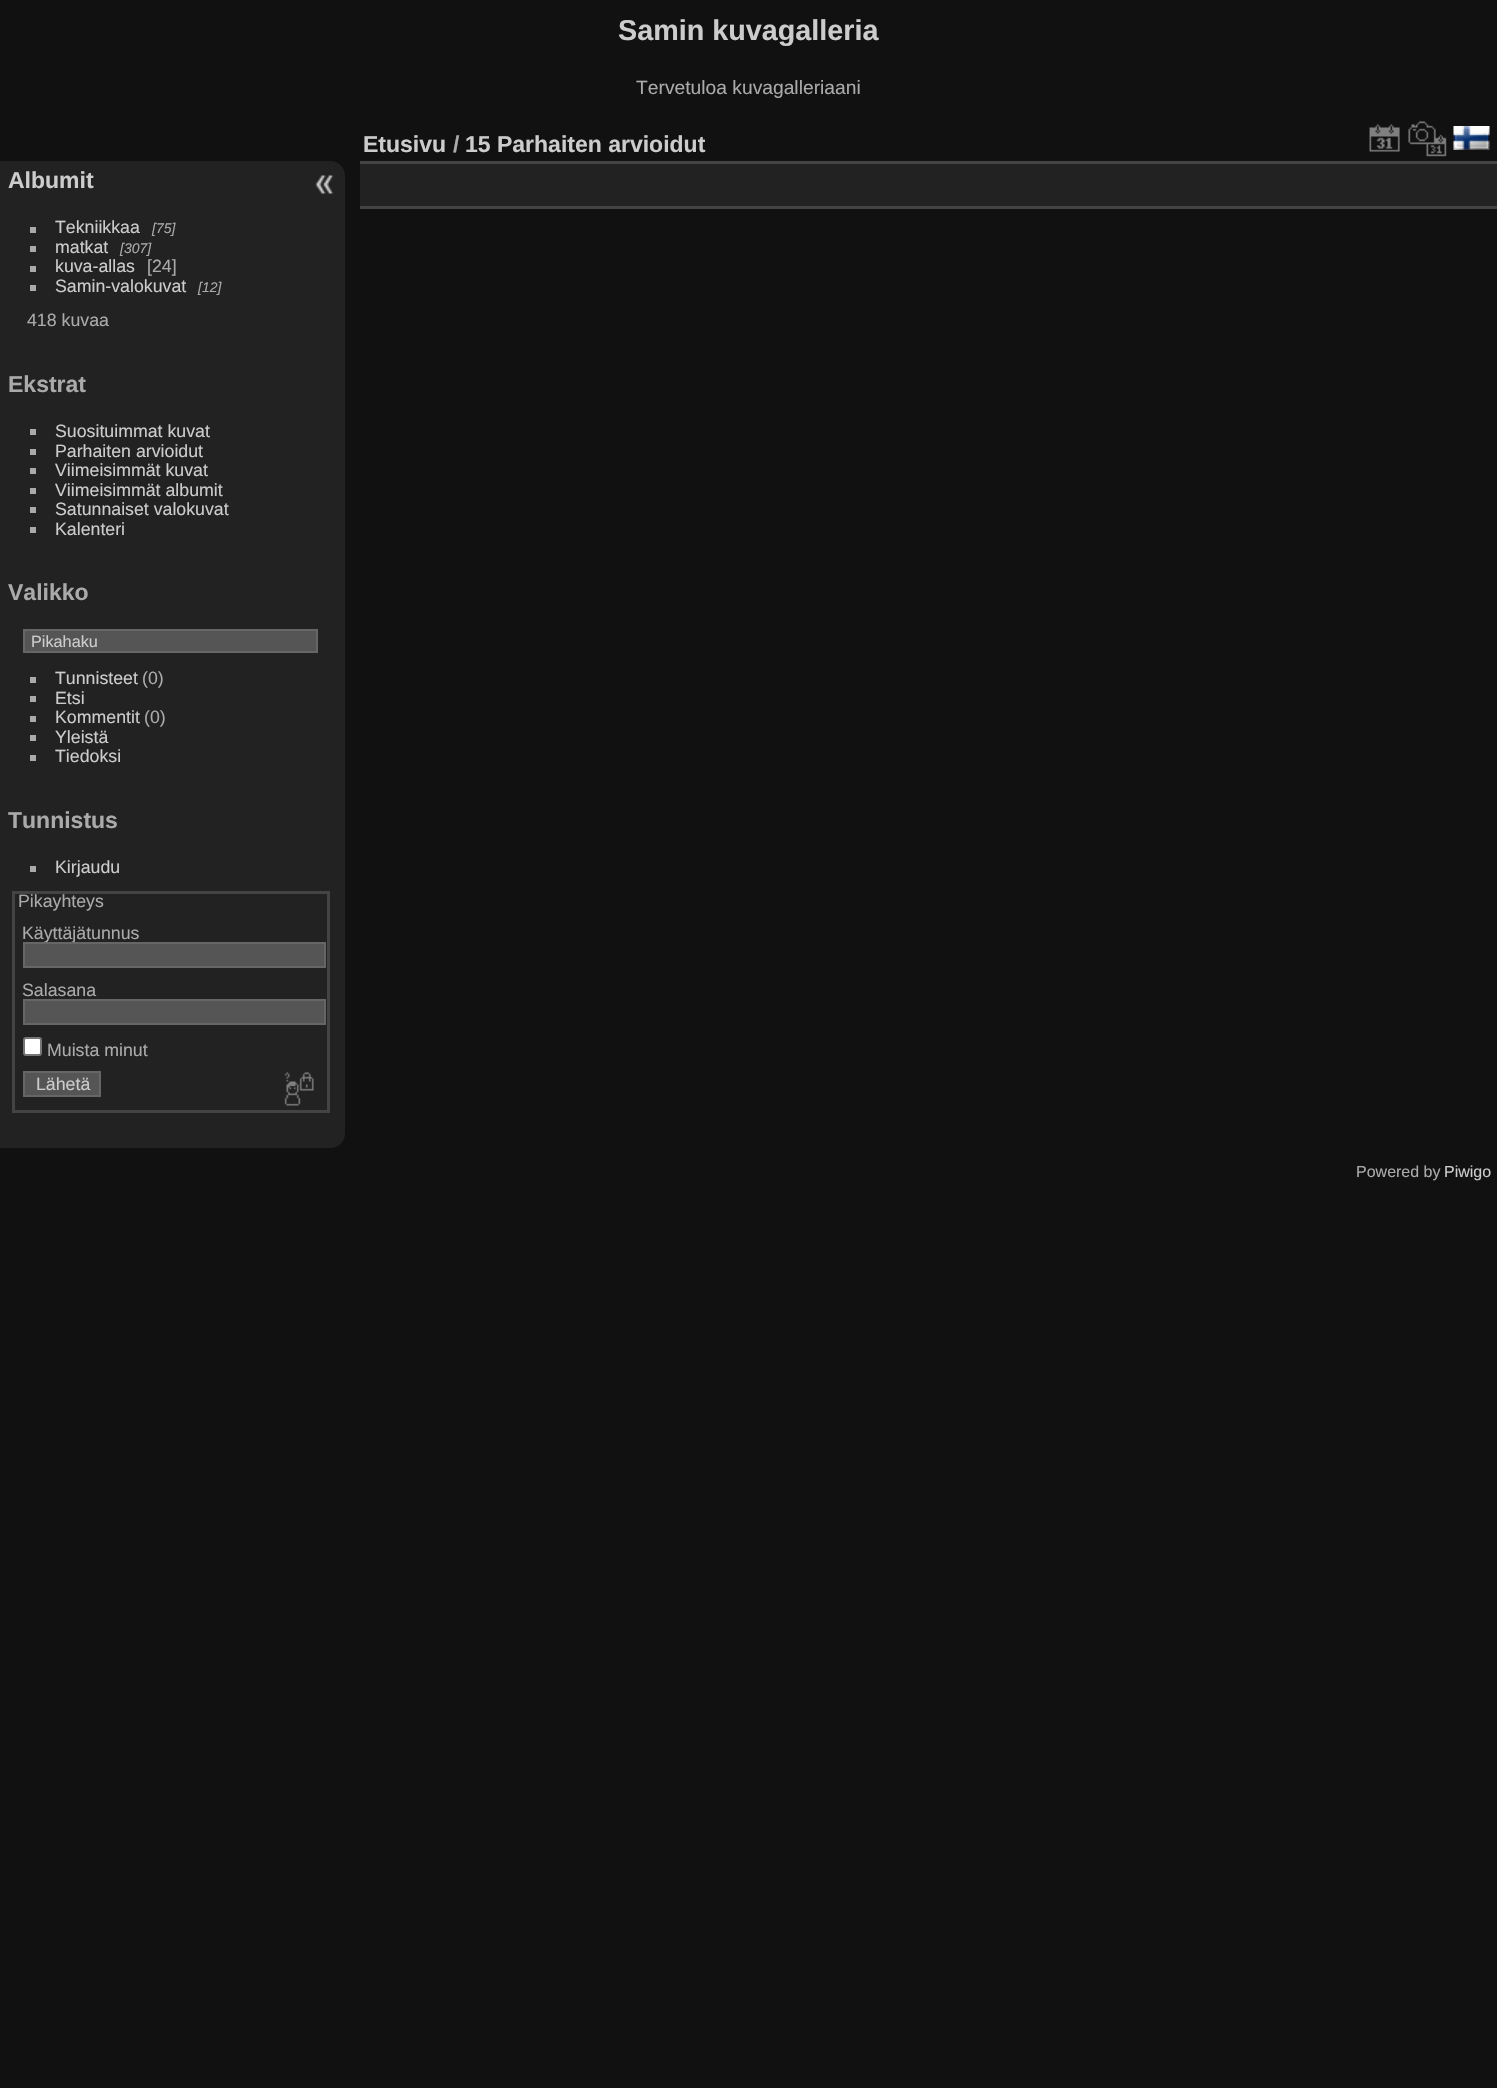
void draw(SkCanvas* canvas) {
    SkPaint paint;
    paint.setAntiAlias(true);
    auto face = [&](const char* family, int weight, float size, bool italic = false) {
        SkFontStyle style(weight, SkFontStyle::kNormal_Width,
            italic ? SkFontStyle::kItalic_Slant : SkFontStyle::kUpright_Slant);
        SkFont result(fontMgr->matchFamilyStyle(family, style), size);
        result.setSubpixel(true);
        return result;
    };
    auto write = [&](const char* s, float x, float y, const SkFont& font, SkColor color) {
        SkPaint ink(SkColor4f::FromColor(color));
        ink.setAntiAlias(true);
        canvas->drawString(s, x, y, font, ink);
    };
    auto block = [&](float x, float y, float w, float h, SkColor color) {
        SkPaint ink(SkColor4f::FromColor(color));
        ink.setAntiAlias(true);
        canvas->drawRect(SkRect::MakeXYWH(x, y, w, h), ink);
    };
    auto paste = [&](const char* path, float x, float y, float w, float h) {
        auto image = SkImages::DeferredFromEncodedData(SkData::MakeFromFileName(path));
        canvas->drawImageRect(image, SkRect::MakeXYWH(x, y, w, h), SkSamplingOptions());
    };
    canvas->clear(SkColorSetRGB(17, 17, 17));
    auto kFont1 = face("Liberation Sans", 700, 28.75f);
    write("Samin kuvagalleria", 618, 40, kFont1, SkColorSetRGB(204, 204, 204));
    auto kFont2 = face("Liberation Sans", 400, 19.25f);
    write("Tervetuloa kuvagalleriaani", 636, 94, kFont2, SkColorSetRGB(170, 170, 170));
    block(360, 164, 1137, 42, SkColorSetRGB(34, 34, 34));
    block(360, 206, 1137, 3, SkColorSetRGB(68, 68, 68));
    block(360, 161, 1137, 3, SkColorSetRGB(68, 68, 68));
    auto kFont3 = face("Liberation Sans", 700, 23);
    write("Etusivu", 363, 152, kFont3, SkColorSetRGB(204, 204, 204));
    write("/", 453, 152, kFont3, SkColorSetRGB(170, 170, 170));
    write("15 Parhaiten arvioidut", 465, 152, kFont3, SkColorSetRGB(204, 204, 204));
    paste("pic1.png", 1369, 124, 31, 28);
    paste("pic2.png", 1408, 121, 39, 36);
    paste("pic3.png", 1453, 126, 37, 24);
    paint.setColor(SkColorSetRGB(34, 34, 34));
    canvas->drawPath(SkPathBuilder().moveTo(0, 161).lineTo(330, 161).cubicTo(338.5f, 161, 345, 167.5f, 345, 176).lineTo(345, 1133).cubicTo(345, 1141.5f, 338.5f, 1148, 330, 1148).lineTo(0, 1148).close().detach(), paint);
    write("Albumit", 8, 188, kFont3, SkColorSetRGB(204, 204, 204));
    block(30, 227, 6, 6, SkColorSetRGB(170, 170, 170));
    auto kFont4 = face("Liberation Sans", 400, 17.75f);
    write("Tekniikkaa", 55, 233, kFont4, SkColorSetRGB(204, 204, 204));
    auto kFont5 = face("Liberation Sans", 400, 14, true);
    write("[75]", 152, 233, kFont5, SkColorSetRGB(170, 170, 170));
    block(30, 246, 6, 6, SkColorSetRGB(170, 170, 170));
    write("matkat", 55, 253, kFont4, SkColorSetRGB(204, 204, 204));
    write("[307]", 120, 253, kFont5, SkColorSetRGB(170, 170, 170));
    block(30, 266, 6, 6, SkColorSetRGB(170, 170, 170));
    write("kuva-allas", 55, 272, kFont4, SkColorSetRGB(204, 204, 204));
    write("[24]", 147, 272, kFont4, SkColorSetRGB(170, 170, 170));
    block(30, 285, 6, 6, SkColorSetRGB(170, 170, 170));
    write("Samin-valokuvat", 55, 292, kFont4, SkColorSetRGB(204, 204, 204));
    write("[12]", 198, 292, kFont5, SkColorSetRGB(170, 170, 170));
    write("418 kuvaa", 27, 326, kFont4, SkColorSetRGB(170, 170, 170));
    write("Ekstrat", 8, 392, kFont3, SkColorSetRGB(170, 170, 170));
    block(30, 429, 6, 6, SkColorSetRGB(170, 170, 170));
    write("Suosituimmat kuvat", 55, 437, kFont4, SkColorSetRGB(204, 204, 204));
    block(30, 449, 6, 6, SkColorSetRGB(170, 170, 170));
    write("Parhaiten arvioidut", 55, 457, kFont4, SkColorSetRGB(204, 204, 204));
    block(30, 468, 6, 6, SkColorSetRGB(170, 170, 170));
    write("Viimeisimmät kuvat", 55, 476, kFont4, SkColorSetRGB(204, 204, 204));
    block(30, 488, 6, 6, SkColorSetRGB(170, 170, 170));
    write("Viimeisimmät albumit", 55, 496, kFont4, SkColorSetRGB(204, 204, 204));
    block(30, 507, 6, 6, SkColorSetRGB(170, 170, 170));
    write("Satunnaiset valokuvat", 55, 515, kFont4, SkColorSetRGB(204, 204, 204));
    block(30, 527, 6, 6, SkColorSetRGB(170, 170, 170));
    write("Kalenteri", 55, 535, kFont4, SkColorSetRGB(204, 204, 204));
    write("Valikko", 8, 600, kFont3, SkColorSetRGB(170, 170, 170));
    paint.setColor(SkColorSetRGB(85, 85, 85));
    canvas->drawRect(SkRect::MakeXYWH(24, 630, 293, 22), paint);
    paint.setStyle(SkPaint::kStroke_Style);
    paint.setStrokeWidth(2);
    paint.setColor(SkColorSetRGB(102, 102, 102));
    canvas->drawRect(SkRect::MakeXYWH(24, 630, 293, 22), paint);
    auto kFont6 = face("Liberation Sans", 400, 16.25f);
    write("Pikahaku", 31, 647, kFont6, SkColorSetRGB(204, 204, 204));
    block(30, 677, 6, 6, SkColorSetRGB(170, 170, 170));
    write("Tunnisteet", 55, 684, kFont4, SkColorSetRGB(204, 204, 204));
    write("(0)", 142, 684, kFont4, SkColorSetRGB(170, 170, 170));
    block(30, 696, 6, 6, SkColorSetRGB(170, 170, 170));
    write("Etsi", 55, 704, kFont4, SkColorSetRGB(204, 204, 204));
    block(30, 716, 6, 6, SkColorSetRGB(170, 170, 170));
    write("Kommentit", 55, 723, kFont4, SkColorSetRGB(204, 204, 204));
    write("(0)", 144, 723, kFont4, SkColorSetRGB(170, 170, 170));
    block(30, 735, 6, 6, SkColorSetRGB(170, 170, 170));
    write("Yleistä", 55, 743, kFont4, SkColorSetRGB(204, 204, 204));
    block(30, 755, 6, 6, SkColorSetRGB(170, 170, 170));
    write("Tiedoksi", 55, 762, kFont4, SkColorSetRGB(204, 204, 204));
    write("Tunnistus", 8, 828, kFont3, SkColorSetRGB(170, 170, 170));
    block(30, 866, 6, 6, SkColorSetRGB(170, 170, 170));
    write("Kirjaudu", 55, 873, kFont4, SkColorSetRGB(204, 204, 204));
    paint.setStrokeWidth(3);
    paint.setColor(SkColorSetRGB(68, 68, 68));
    canvas->drawRect(SkRect::MakeXYWH(13.5f, 892.5f, 315, 219), paint);
    write("Pikayhteys", 18, 907, kFont4, SkColorSetRGB(170, 170, 170));
    write("Käyttäjätunnus", 22, 939, kFont4, SkColorSetRGB(170, 170, 170));
    paint.setStyle(SkPaint::kFill_Style);
    paint.setColor(SkColorSetRGB(85, 85, 85));
    canvas->drawRect(SkRect::MakeXYWH(24, 943, 301, 24), paint);
    paint.setStyle(SkPaint::kStroke_Style);
    paint.setStrokeWidth(2);
    paint.setColor(SkColorSetRGB(102, 102, 102));
    canvas->drawRect(SkRect::MakeXYWH(24, 943, 301, 24), paint);
    write("Salasana", 22, 996, kFont4, SkColorSetRGB(170, 170, 170));
    paint.setStyle(SkPaint::kFill_Style);
    paint.setColor(SkColorSetRGB(85, 85, 85));
    canvas->drawRect(SkRect::MakeXYWH(24, 1000, 301, 24), paint);
    paint.setStyle(SkPaint::kStroke_Style);
    paint.setColor(SkColorSetRGB(102, 102, 102));
    canvas->drawRect(SkRect::MakeXYWH(24, 1000, 301, 24), paint);
    paint.setStyle(SkPaint::kFill_Style);
    paint.setColor(SK_ColorWHITE);
    canvas->drawRoundRect(SkRect::MakeXYWH(24, 1038, 17, 17), 2, 2, paint);
    paint.setStyle(SkPaint::kStroke_Style);
    paint.setColor(SkColorSetRGB(118, 118, 118));
    canvas->drawRoundRect(SkRect::MakeXYWH(24, 1038, 17, 17), 2, 2, paint);
    write("Muista minut", 47, 1056, kFont4, SkColorSetRGB(170, 170, 170));
    paint.setStyle(SkPaint::kFill_Style);
    paint.setColor(SkColorSetRGB(85, 85, 85));
    canvas->drawRect(SkRect::MakeXYWH(24, 1072, 76, 24), paint);
    paint.setStyle(SkPaint::kStroke_Style);
    paint.setColor(SkColorSetRGB(102, 102, 102));
    canvas->drawRect(SkRect::MakeXYWH(24, 1072, 76, 24), paint);
    write("Lähetä", 36, 1090, kFont4, SkColorSetRGB(204, 204, 204));
    paste("pic4.png", 284, 1072, 30, 34);
    paste("pic5.png", 315, 175, 19, 19);
    auto kFont7 = face("Liberation Sans", 400, 16);
    write("Powered by", 1356, 1177, kFont7, SkColorSetRGB(170, 170, 170));
    write("Piwigo", 1444, 1177, kFont7, SkColorSetRGB(204, 204, 204));
}
